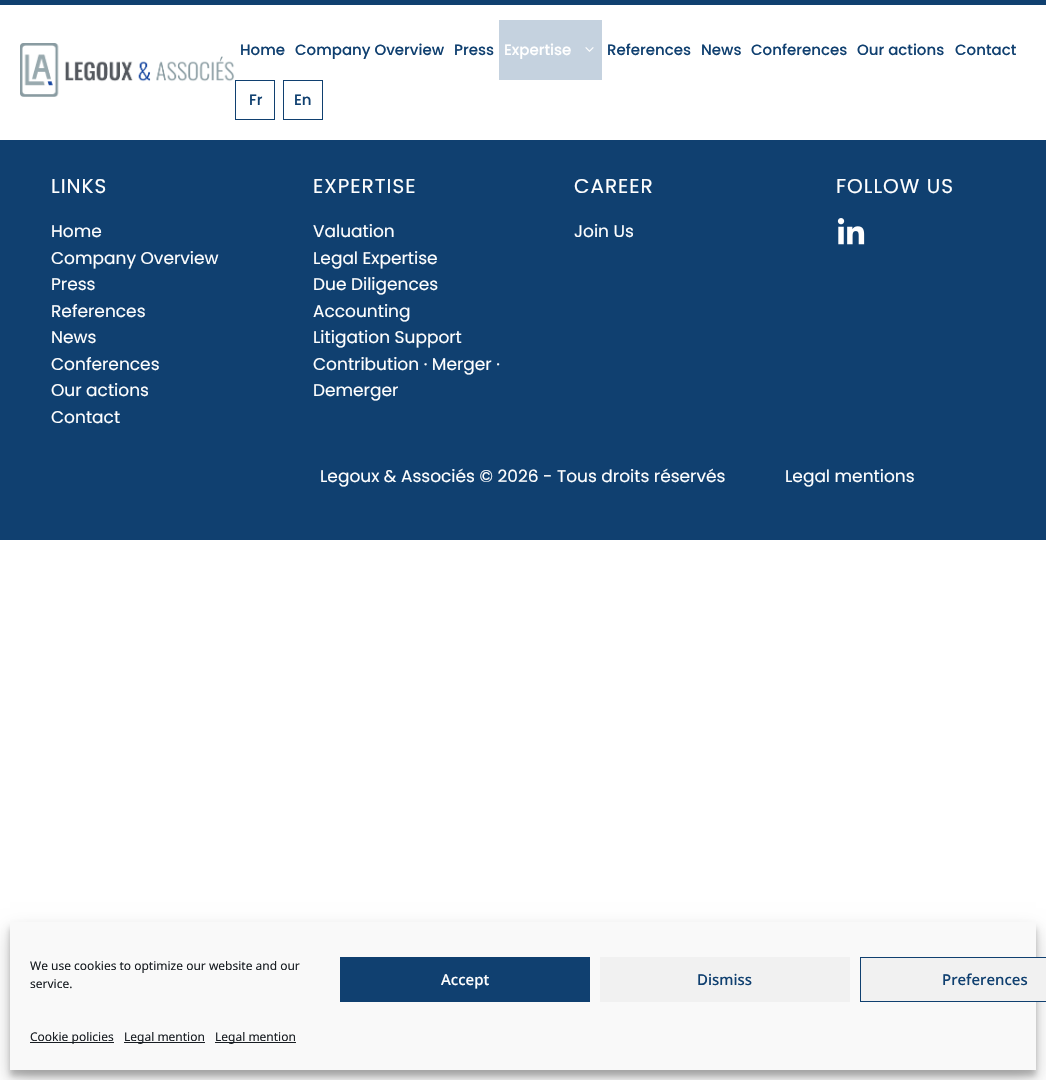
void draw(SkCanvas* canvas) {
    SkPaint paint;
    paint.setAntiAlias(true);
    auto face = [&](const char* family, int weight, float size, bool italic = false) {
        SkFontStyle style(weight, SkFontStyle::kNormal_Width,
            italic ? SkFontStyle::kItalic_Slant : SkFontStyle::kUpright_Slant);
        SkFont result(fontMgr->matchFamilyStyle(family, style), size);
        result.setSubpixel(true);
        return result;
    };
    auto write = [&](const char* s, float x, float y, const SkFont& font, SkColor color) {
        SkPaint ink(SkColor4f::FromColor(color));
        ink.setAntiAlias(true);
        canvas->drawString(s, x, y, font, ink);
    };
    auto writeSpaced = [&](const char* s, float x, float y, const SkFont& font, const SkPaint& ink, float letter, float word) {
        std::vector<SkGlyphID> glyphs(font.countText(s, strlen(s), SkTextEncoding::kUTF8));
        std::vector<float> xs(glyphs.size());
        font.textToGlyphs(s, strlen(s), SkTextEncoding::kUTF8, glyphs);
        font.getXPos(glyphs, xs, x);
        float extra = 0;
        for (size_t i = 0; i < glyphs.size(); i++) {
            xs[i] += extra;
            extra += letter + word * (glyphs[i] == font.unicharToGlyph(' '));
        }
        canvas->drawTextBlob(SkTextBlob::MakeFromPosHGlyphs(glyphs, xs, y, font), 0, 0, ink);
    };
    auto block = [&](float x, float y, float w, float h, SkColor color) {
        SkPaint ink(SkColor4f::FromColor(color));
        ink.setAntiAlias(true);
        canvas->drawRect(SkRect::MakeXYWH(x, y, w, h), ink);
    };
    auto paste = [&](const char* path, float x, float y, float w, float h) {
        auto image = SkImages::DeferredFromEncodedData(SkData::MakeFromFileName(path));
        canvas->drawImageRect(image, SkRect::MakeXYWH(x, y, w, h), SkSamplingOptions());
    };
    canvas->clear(SK_ColorWHITE);
    block(0, 0, 1046, 5, SkColorSetRGB(16, 64, 112));
    paste("pic1.png", 20, 43, 215, 54);
    auto kFont1 = face("Poppins", 500, 15);
    write("Home", 240, 55, kFont1, SkColorSetRGB(16, 64, 112));
    write("Company Overview", 295, 55, kFont1, SkColorSetRGB(16, 64, 112));
    write("Press", 454, 55, kFont1, SkColorSetRGB(16, 64, 112));
    block(499, 20, 103, 60, SkColorSetRGB(197, 210, 223));
    write("Expertise", 504, 55, kFont1, SK_ColorWHITE);
    paste("pic2.png", 585, 47, 9, 5);
    write("References", 607, 55, kFont1, SkColorSetRGB(16, 64, 112));
    write("News", 701, 55, kFont1, SkColorSetRGB(16, 64, 112));
    write("Conferences", 751, 55, kFont1, SkColorSetRGB(16, 64, 112));
    write("Our actions", 857, 55, kFont1, SkColorSetRGB(16, 64, 112));
    write("Contact", 955, 55, kFont1, SkColorSetRGB(16, 64, 112));
    paint.setStyle(SkPaint::kStroke_Style);
    paint.setStrokeWidth(1);
    paint.setColor(SkColorSetRGB(16, 64, 112));
    canvas->drawRect(SkRect::MakeXYWH(235.5f, 80.5f, 39, 39), paint);
    write("Fr", 249, 105, kFont1, SkColorSetRGB(16, 64, 112));
    canvas->drawRect(SkRect::MakeXYWH(283.5f, 80.5f, 39, 39), paint);
    write("En", 294, 105, kFont1, SkColorSetRGB(16, 64, 112));
    block(0, 140, 1046, 400, SkColorSetRGB(16, 64, 112));
    auto kFont2 = face("Poppins", 400, 20);
    paint.setStyle(SkPaint::kFill_Style);
    paint.setColor(SK_ColorWHITE);
    writeSpaced("LINKS", 51, 193, kFont2, paint, 1, 0);
    auto kFont3 = face("Poppins", 400, 17);
    write("Home", 51, 237, kFont3, SK_ColorWHITE);
    write("Company Overview", 51, 264, kFont3, SK_ColorWHITE);
    write("Press", 51, 290, kFont3, SK_ColorWHITE);
    write("References", 51, 317, kFont3, SK_ColorWHITE);
    write("News", 51, 343, kFont3, SK_ColorWHITE);
    write("Conferences", 51, 370, kFont3, SK_ColorWHITE);
    write("Our actions", 51, 396, kFont3, SK_ColorWHITE);
    write("Contact", 51, 423, kFont3, SK_ColorWHITE);
    writeSpaced("EXPERTISE", 313, 193, kFont2, paint, 1, 0);
    write("Valuation", 313, 237, kFont3, SK_ColorWHITE);
    write("Legal Expertise", 313, 264, kFont3, SK_ColorWHITE);
    write("Due Diligences", 313, 290, kFont3, SK_ColorWHITE);
    write("Accounting", 313, 317, kFont3, SK_ColorWHITE);
    write("Litigation Support", 313, 343, kFont3, SK_ColorWHITE);
    write("Contribution · Merger ·", 313, 370, kFont3, SK_ColorWHITE);
    write("Demerger", 313, 396, kFont3, SK_ColorWHITE);
    writeSpaced("CAREER", 574, 193, kFont2, paint, 1, 0);
    write("Join Us", 574, 237, kFont3, SK_ColorWHITE);
    writeSpaced("FOLLOW US", 836, 193, kFont2, paint, 1, 0);
    paste("pic3.png", 837, 218, 28, 27);
    write("Legoux & Associés © 2026 - Tous droits réservés", 320, 482, kFont3, SK_ColorWHITE);
    write("Legal mentions", 785, 482, kFont3, SK_ColorWHITE);
    paint.setColor(SkColorSetARGB(59, 0, 0, 0));
    paint.setMaskFilter(SkMaskFilter::MakeBlur(kNormal_SkBlurStyle, 3));
    canvas->drawRect(SkRect::MakeXYWH(10, 928, 1026, 148), paint);
    paint.setMaskFilter(nullptr);
    paint.setColor(SkColorSetARGB(48, 0, 0, 0));
    paint.setMaskFilter(SkMaskFilter::MakeBlur(kNormal_SkBlurStyle, 10));
    canvas->drawRect(SkRect::MakeXYWH(10, 932, 1026, 148), paint);
    paint.setMaskFilter(nullptr);
    block(10, 922, 1026, 148, SkColorSetRGB(249, 249, 249));
    auto kFont4 = face("Noto Sans", 400, 12);
    write("We use cookies to optimize our website and our", 30, 970, kFont4, SkColorSetRGB(25, 30, 35));
    write("service.", 30, 988, kFont4, SkColorSetRGB(25, 30, 35));
    block(340, 957, 250, 45, SkColorSetRGB(16, 64, 112));
    auto kFont5 = face("Noto Sans", 500, 15);
    write("Accept", 441, 985, kFont5, SK_ColorWHITE);
    block(600, 957, 250, 45, SkColorSetRGB(241, 241, 241));
    write("Dismiss", 697, 985, kFont5, SkColorSetRGB(16, 64, 112));
    paint.setColor(SkColorSetRGB(241, 241, 241));
    canvas->drawRect(SkRect::MakeXYWH(860.5f, 957.5f, 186, 44), paint);
    paint.setStyle(SkPaint::kStroke_Style);
    paint.setColor(SkColorSetRGB(16, 64, 112));
    canvas->drawRect(SkRect::MakeXYWH(860.5f, 957.5f, 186, 44), paint);
    write("Preferences", 942, 985, kFont5, SkColorSetRGB(16, 64, 112));
    block(30, 1042, 84, 1, SkColorSetRGB(25, 30, 35));
    write("Cookie policies", 30, 1041, kFont4, SkColorSetRGB(25, 30, 35));
    block(124, 1042, 81, 1, SkColorSetRGB(25, 30, 35));
    write("Legal mention", 124, 1041, kFont4, SkColorSetRGB(25, 30, 35));
    block(215, 1042, 81, 1, SkColorSetRGB(25, 30, 35));
    write("Legal mention", 215, 1041, kFont4, SkColorSetRGB(25, 30, 35));
}
